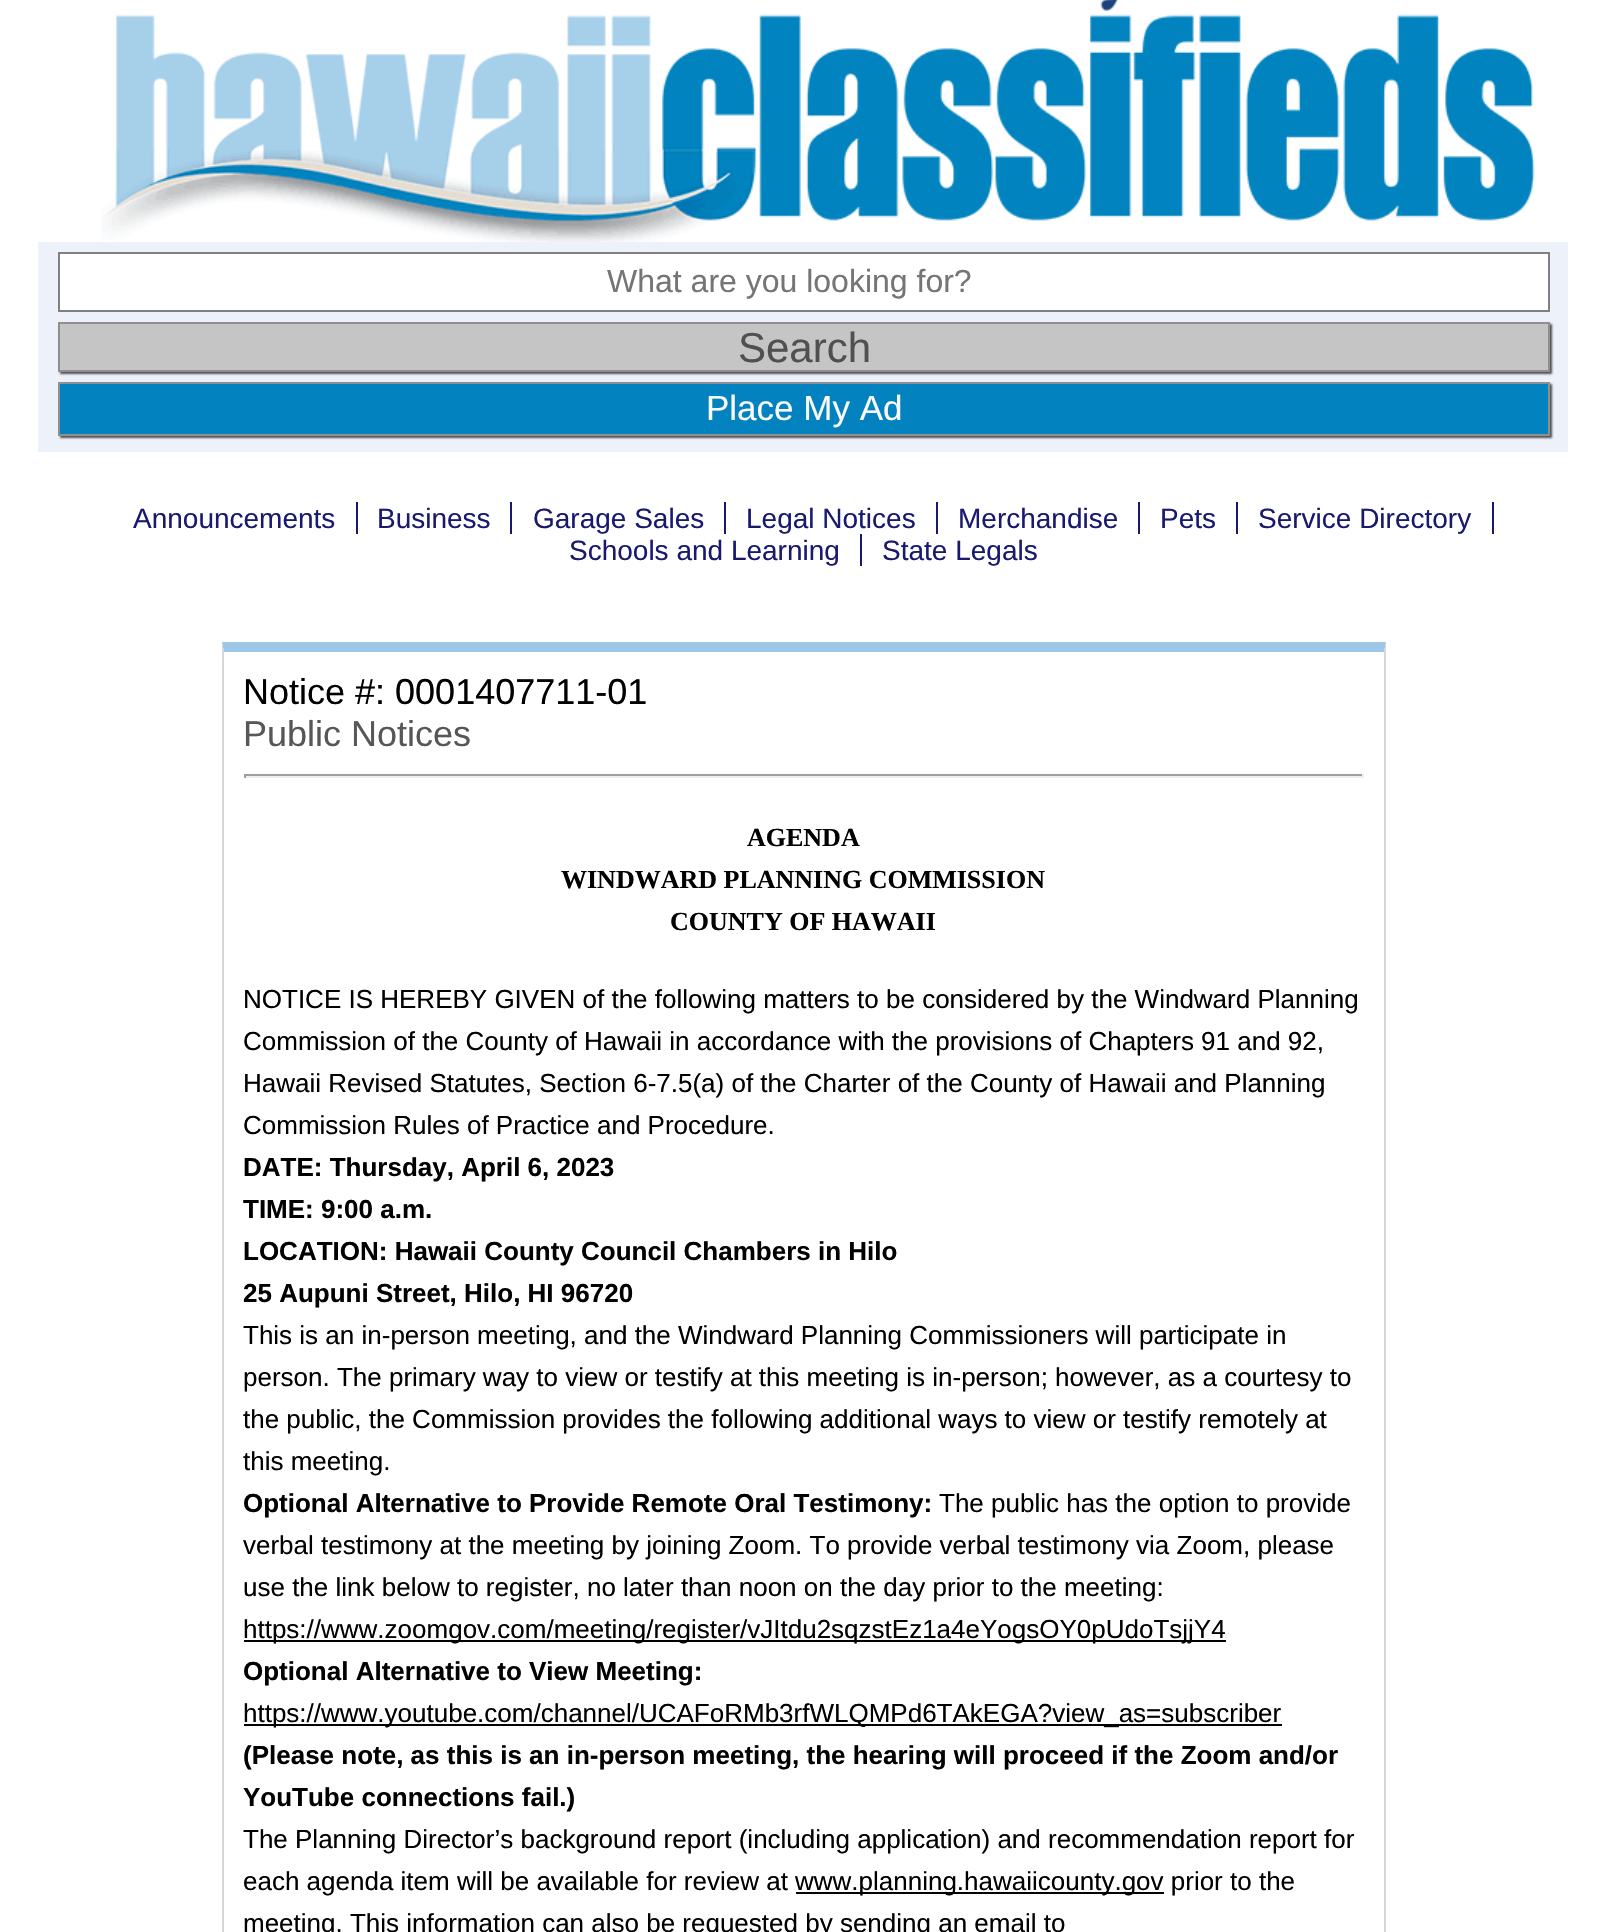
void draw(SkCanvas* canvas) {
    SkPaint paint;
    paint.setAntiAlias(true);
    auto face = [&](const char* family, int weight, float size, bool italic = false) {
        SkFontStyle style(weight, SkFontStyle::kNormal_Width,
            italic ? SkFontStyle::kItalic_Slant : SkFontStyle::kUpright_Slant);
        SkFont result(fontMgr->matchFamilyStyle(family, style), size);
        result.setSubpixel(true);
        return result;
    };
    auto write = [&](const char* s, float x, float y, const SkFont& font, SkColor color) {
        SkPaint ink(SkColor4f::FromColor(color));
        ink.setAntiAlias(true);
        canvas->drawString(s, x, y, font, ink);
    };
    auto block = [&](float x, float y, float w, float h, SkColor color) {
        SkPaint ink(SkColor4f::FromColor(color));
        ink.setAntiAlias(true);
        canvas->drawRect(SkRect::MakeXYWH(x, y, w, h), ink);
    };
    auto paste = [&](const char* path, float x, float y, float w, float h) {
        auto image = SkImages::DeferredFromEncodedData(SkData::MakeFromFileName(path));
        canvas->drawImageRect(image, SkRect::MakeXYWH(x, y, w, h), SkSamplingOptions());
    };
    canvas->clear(SK_ColorWHITE);
    paste("pic1.png", 1100, 0, 19, 11);
    paste("pic2.png", 101, 14, 1434, 228);
    block(38, 242, 1530, 210, SkColorSetRGB(237, 241, 250));
    paint.setColor(SK_ColorWHITE);
    canvas->drawRect(SkRect::MakeXYWH(59, 253, 1490, 58), paint);
    paint.setStyle(SkPaint::kStroke_Style);
    paint.setStrokeWidth(2);
    paint.setColor(SkColorSetRGB(128, 128, 128));
    canvas->drawRect(SkRect::MakeXYWH(59, 253, 1490, 58), paint);
    auto kFont1 = face("Liberation Sans", 400, 32);
    write("What are you looking for?", 607, 292, kFont1, SkColorSetRGB(117, 117, 117));
    paint.setStyle(SkPaint::kFill_Style);
    paint.setColor(SkColorSetRGB(80, 80, 80));
    paint.setMaskFilter(SkMaskFilter::MakeBlur(kNormal_SkBlurStyle, 1));
    canvas->drawRect(SkRect::MakeXYWH(60, 324, 1492, 50), paint);
    paint.setMaskFilter(nullptr);
    paint.setColor(SkColorSetRGB(197, 197, 197));
    canvas->drawRect(SkRect::MakeXYWH(59, 323, 1490, 48), paint);
    paint.setStyle(SkPaint::kStroke_Style);
    paint.setColor(SkColorSetRGB(144, 142, 142));
    canvas->drawRect(SkRect::MakeXYWH(59, 323, 1490, 48), paint);
    auto kFont2 = face("Liberation Sans", 400, 42);
    write("Search", 738, 362, kFont2, SkColorSetRGB(80, 80, 80));
    paint.setStyle(SkPaint::kFill_Style);
    paint.setColor(SkColorSetRGB(80, 80, 80));
    paint.setMaskFilter(SkMaskFilter::MakeBlur(kNormal_SkBlurStyle, 1));
    canvas->drawRect(SkRect::MakeXYWH(60, 384, 1492, 54), paint);
    paint.setMaskFilter(nullptr);
    paint.setColor(SkColorSetRGB(2, 130, 191));
    canvas->drawRect(SkRect::MakeXYWH(59, 383, 1490, 52), paint);
    paint.setStyle(SkPaint::kStroke_Style);
    paint.setColor(SkColorSetRGB(144, 142, 142));
    canvas->drawRect(SkRect::MakeXYWH(59, 383, 1490, 52), paint);
    auto kFont3 = face("Liberation Sans", 400, 35);
    write("Place My Ad", 706, 420, kFont3, SkColorSetRGB(250, 250, 250));
    auto kFont4 = face("Liberation Sans", 400, 28);
    write("Announcements", 133, 528, kFont4, SkColorSetRGB(25, 25, 112));
    block(356, 502, 2, 32, SkColorSetRGB(25, 25, 112));
    write("Business", 377, 528, kFont4, SkColorSetRGB(25, 25, 112));
    block(510, 502, 2, 32, SkColorSetRGB(25, 25, 112));
    write("Garage Sales", 533, 528, kFont4, SkColorSetRGB(25, 25, 112));
    block(724, 502, 2, 32, SkColorSetRGB(25, 25, 112));
    write("Legal Notices", 746, 528, kFont4, SkColorSetRGB(25, 25, 112));
    block(936, 502, 2, 32, SkColorSetRGB(25, 25, 112));
    write("Merchandise", 958, 528, kFont4, SkColorSetRGB(25, 25, 112));
    block(1138, 502, 2, 32, SkColorSetRGB(25, 25, 112));
    write("Pets", 1160, 528, kFont4, SkColorSetRGB(25, 25, 112));
    block(1236, 502, 2, 32, SkColorSetRGB(25, 25, 112));
    write("Service Directory", 1258, 528, kFont4, SkColorSetRGB(25, 25, 112));
    block(1492, 502, 2, 32, SkColorSetRGB(25, 25, 112));
    write("Schools and Learning", 569, 560, kFont4, SkColorSetRGB(25, 25, 112));
    block(860, 534, 2, 32, SkColorSetRGB(25, 25, 112));
    write("State Legals", 882, 560, kFont4, SkColorSetRGB(25, 25, 112));
    paint.setStyle(SkPaint::kFill_Style);
    paint.setColor(SkColorSetRGB(156, 199, 233));
    canvas->drawPath(SkPathBuilder().moveTo(222, 642).lineTo(1386, 642).lineTo(1384, 652).lineTo(224, 652).close().detach(), paint);
    paint.setColor(SkColorSetRGB(214, 214, 215));
    canvas->drawPath(SkPathBuilder().moveTo(1386, 642).lineTo(1386, 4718).lineTo(1384, 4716).lineTo(1384, 652).close().detach(), paint);
    canvas->drawPath(SkPathBuilder().moveTo(222, 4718).lineTo(222, 642).lineTo(224, 652).lineTo(224, 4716).close().detach(), paint);
    auto kFont5 = face("Liberation Sans", 400, 36);
    write("Notice #: 0001407711-01", 243, 704, kFont5, SK_ColorBLACK);
    write("Public Notices", 243, 746, kFont5, SkColorSetRGB(87, 87, 87));
    block(244, 774, 1120, 2, SkColorSetRGB(159, 159, 159));
    block(1362, 774, 2, 4, SkColorSetRGB(238, 238, 238));
    block(244, 776, 1120, 2, SkColorSetRGB(238, 238, 238));
    block(244, 774, 2, 4, SkColorSetRGB(159, 159, 159));
    auto kFont6 = face("Liberation Serif", 700, 26);
    write("AGENDA", 747, 846, kFont6, SK_ColorBLACK);
    write("WINDWARD PLANNING COMMISSION", 561, 888, kFont6, SK_ColorBLACK);
    write("COUNTY OF HAWAII", 670, 930, kFont6, SK_ColorBLACK);
    auto kFont7 = face("Liberation Sans", 400, 26);
    write("NOTICE IS HEREBY GIVEN of the following matters to be considered by the Windward Planning", 243, 1008, kFont7, SK_ColorBLACK);
    write("Commission of the County of Hawaii in accordance with the provisions of Chapters 91 and 92,", 243, 1050, kFont7, SK_ColorBLACK);
    write("Hawaii Revised Statutes, Section 6-7.5(a) of the Charter of the County of Hawaii and Planning", 243, 1092, kFont7, SK_ColorBLACK);
    write("Commission Rules of Practice and Procedure.", 243, 1134, kFont7, SK_ColorBLACK);
    auto kFont8 = face("Liberation Sans", 700, 26);
    write("DATE: Thursday, April 6, 2023", 243, 1176, kFont8, SK_ColorBLACK);
    write("TIME: 9:00 a.m.", 243, 1218, kFont8, SK_ColorBLACK);
    write("LOCATION: Hawaii County Council Chambers in Hilo", 243, 1260, kFont8, SK_ColorBLACK);
    write("25 Aupuni Street, Hilo, HI 96720", 243, 1302, kFont8, SK_ColorBLACK);
    write("This is an in-person meeting, and the Windward Planning Commissioners will participate in", 243, 1344, kFont7, SK_ColorBLACK);
    write("person. The primary way to view or testify at this meeting is in-person; however, as a courtesy to", 243, 1386, kFont7, SK_ColorBLACK);
    write("the public, the Commission provides the following additional ways to view or testify remotely at", 243, 1428, kFont7, SK_ColorBLACK);
    write("this meeting.", 243, 1470, kFont7, SK_ColorBLACK);
    write("Optional Alternative to Provide Remote Oral Testimony:", 243, 1512, kFont8, SK_ColorBLACK);
    write("The public has the option to provide", 939, 1512, kFont7, SK_ColorBLACK);
    write("verbal testimony at the meeting by joining Zoom. To provide verbal testimony via Zoom, please", 243, 1554, kFont7, SK_ColorBLACK);
    write("use the link below to register, no later than noon on the day prior to the meeting:", 243, 1596, kFont7, SK_ColorBLACK);
    block(244, 1640, 982, 2, SK_ColorBLACK);
    write("https://www.zoomgov.com/meeting/register/vJItdu2sqzstEz1a4eYogsOY0pUdoTsjjY4", 243, 1638, kFont7, SK_ColorBLACK);
    write("Optional Alternative to View Meeting:", 243, 1680, kFont8, SK_ColorBLACK);
    block(244, 1724, 1038, 2, SK_ColorBLACK);
    write("https://www.youtube.com/channel/UCAFoRMb3rfWLQMPd6TAkEGA?view_as=subscriber", 243, 1722, kFont7, SK_ColorBLACK);
    write("(Please note, as this is an in-person meeting, the hearing will proceed if the Zoom and/or", 243, 1764, kFont8, SK_ColorBLACK);
    write("YouTube connections fail.)", 243, 1806, kFont8, SK_ColorBLACK);
    write("The Planning Director’s background report (including application) and recommendation report for", 243, 1848, kFont7, SK_ColorBLACK);
    write("each agenda item will be available for review at", 243, 1890, kFont7, SK_ColorBLACK);
    block(796, 1892, 368, 2, SK_ColorBLACK);
    write("www.planning.hawaiicounty.gov prior to the", 795, 1890, kFont7, SK_ColorBLACK);
    write("meeting. This information can also be requested by sending an email to", 243, 1932, kFont7, SK_ColorBLACK);
}
